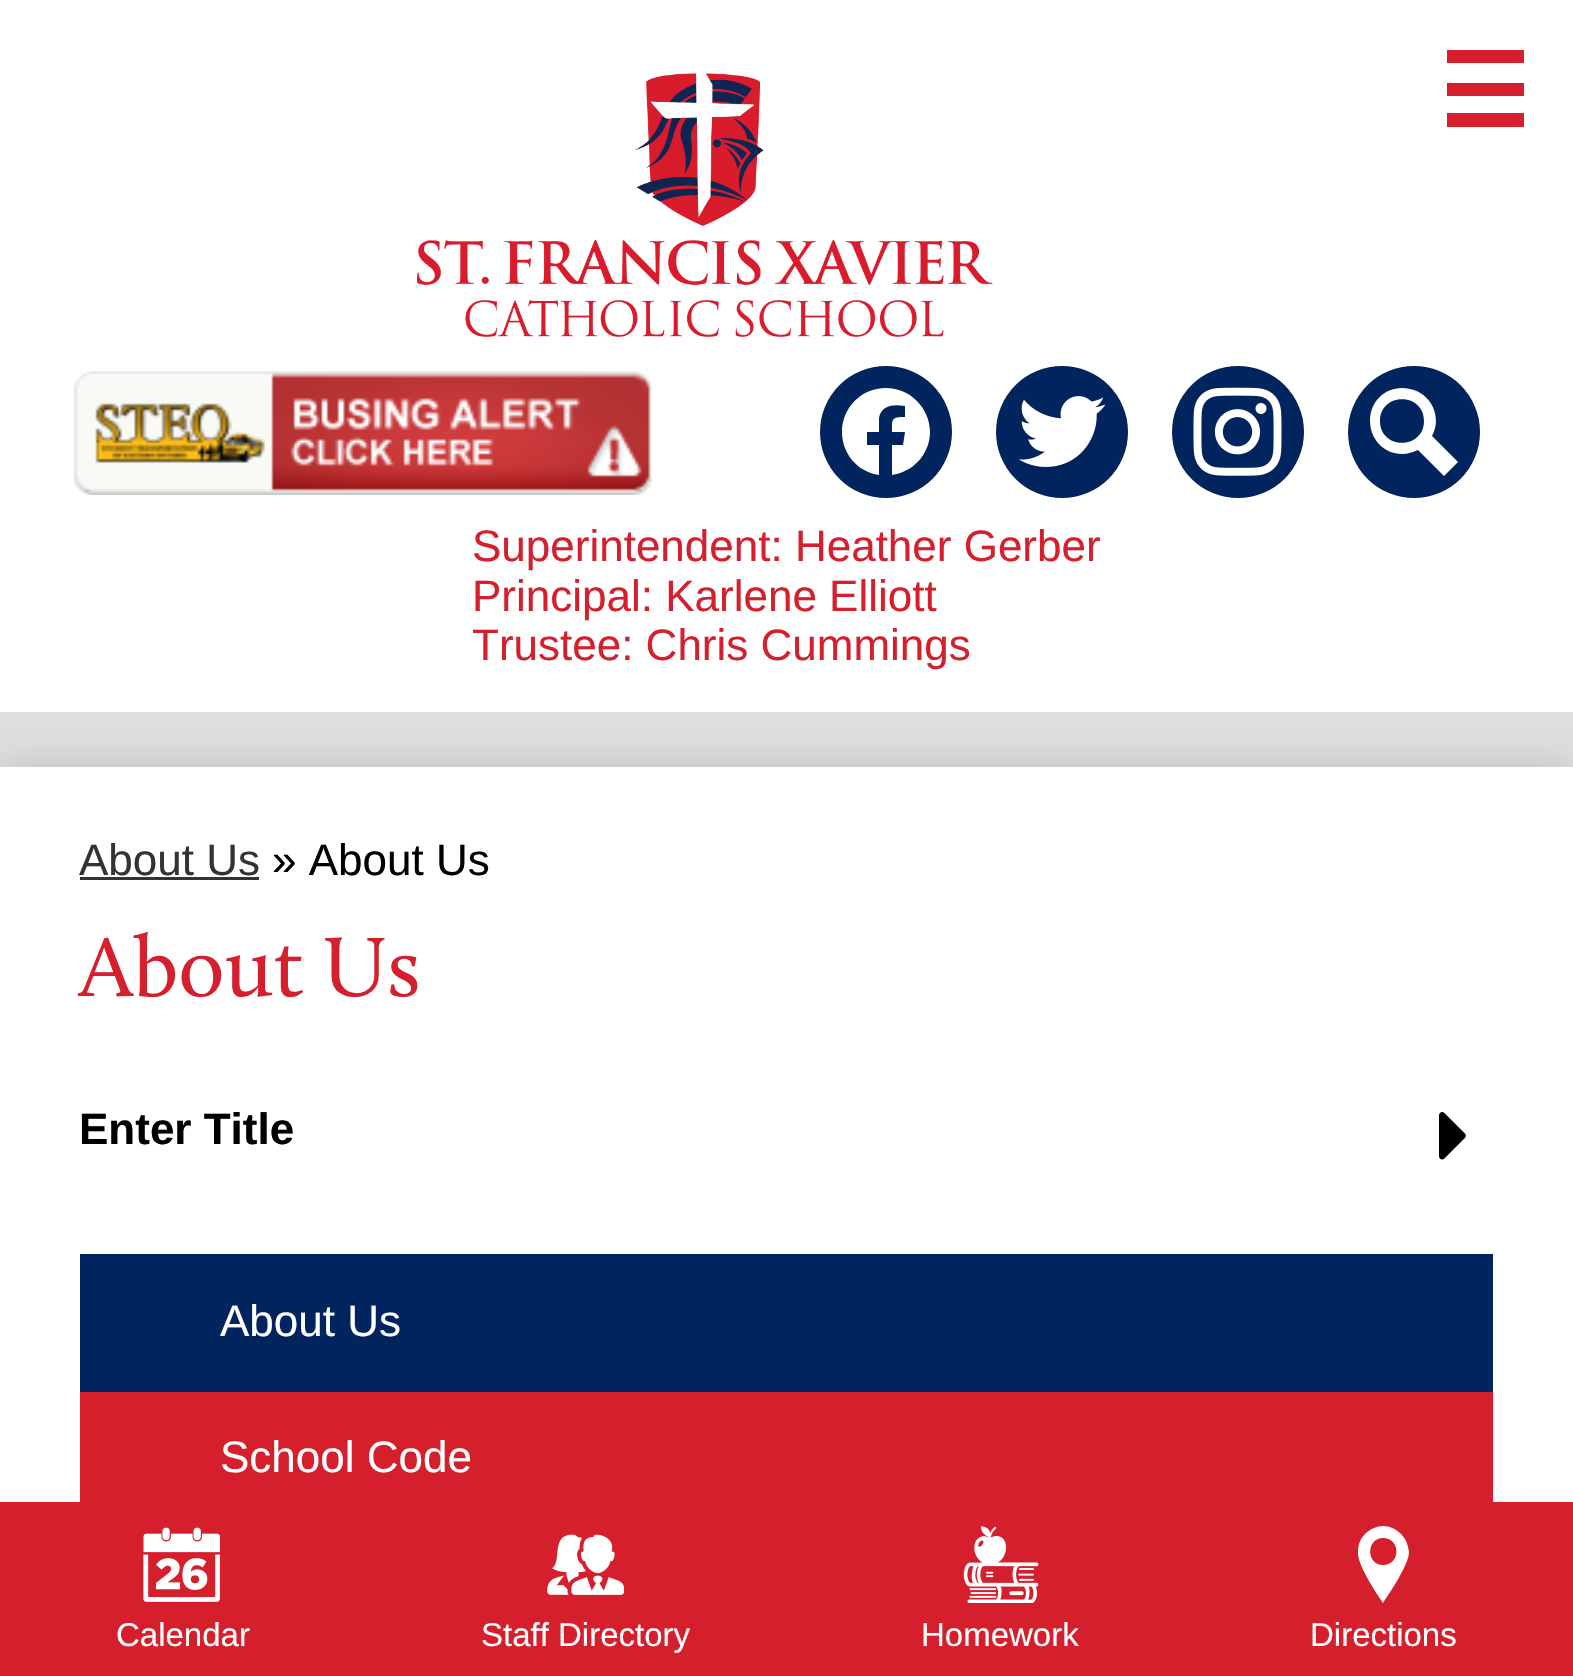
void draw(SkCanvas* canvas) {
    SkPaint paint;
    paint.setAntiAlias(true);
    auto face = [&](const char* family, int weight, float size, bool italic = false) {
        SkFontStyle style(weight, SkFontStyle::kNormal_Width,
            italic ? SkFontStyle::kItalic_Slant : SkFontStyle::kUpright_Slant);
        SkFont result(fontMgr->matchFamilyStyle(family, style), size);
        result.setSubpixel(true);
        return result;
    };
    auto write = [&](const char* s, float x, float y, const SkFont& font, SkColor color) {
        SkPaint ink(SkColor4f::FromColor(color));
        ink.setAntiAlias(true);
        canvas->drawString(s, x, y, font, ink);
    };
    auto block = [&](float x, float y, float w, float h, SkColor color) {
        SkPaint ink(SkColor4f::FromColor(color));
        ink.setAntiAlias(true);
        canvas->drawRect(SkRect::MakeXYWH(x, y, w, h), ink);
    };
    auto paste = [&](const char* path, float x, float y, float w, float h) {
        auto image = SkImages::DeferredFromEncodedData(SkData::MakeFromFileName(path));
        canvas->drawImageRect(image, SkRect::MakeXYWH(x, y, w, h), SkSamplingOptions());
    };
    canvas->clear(SkColorSetRGB(223, 223, 223));
    paint.setColor(SkColorSetARGB(38, 0, 0, 0));
    paint.setMaskFilter(SkMaskFilter::MakeBlur(kNormal_SkBlurStyle, 20.5f));
    canvas->drawRect(SkRect::MakeXYWH(0, 767, 1573, 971), paint);
    paint.setMaskFilter(nullptr);
    block(0, 0, 1573, 712, SK_ColorWHITE);
    paste("pic1.png", 416, 73, 577, 264);
    block(1447, 50, 77, 13, SkColorSetRGB(213, 31, 45));
    block(1447, 83, 77, 13, SkColorSetRGB(213, 31, 45));
    block(1447, 113, 77, 14, SkColorSetRGB(213, 31, 45));
    paste("pic2.png", 74, 371, 578, 124);
    paint.setColor(SkColorSetRGB(0, 36, 93));
    canvas->drawCircle(886, 432, 66, paint);
    paint.setColor(SK_ColorWHITE);
    canvas->drawPath(SkPathBuilder().moveTo(930, 432).cubicTo(930, 408, 910, 388, 886, 388).cubicTo(861, 388, 842, 408, 842, 432).cubicTo(842, 454, 858, 472, 879, 475).lineTo(879, 445).lineTo(867, 445).lineTo(867, 432).lineTo(879, 432).lineTo(879, 418).cubicTo(881, 405, 894, 404, 905, 406).lineTo(905, 417).cubicTo(891, 417, 892, 419, 892, 432).lineTo(905, 432).lineTo(903, 445).lineTo(892, 445).lineTo(892, 475).cubicTo(913, 472, 930, 454, 930, 432).close().detach(), paint);
    paint.setColor(SkColorSetRGB(0, 36, 93));
    canvas->drawCircle(1062, 432, 66, paint);
    paste("pic3.png", 1018, 396, 88, 71);
    canvas->drawCircle(1238, 432, 66, paint);
    paste("pic4.png", 1193, 387, 89, 89);
    canvas->drawCircle(1414, 432, 66, paint);
    paint.setColor(SK_ColorWHITE);
    canvas->drawPath(SkPathBuilder().moveTo(1458, 462).lineTo(1432, 436).cubicTo(1434, 432, 1436, 426, 1436, 421).cubicTo(1436, 402, 1421, 388, 1402, 388).cubicTo(1384, 388, 1370, 402, 1370, 421).cubicTo(1370, 439, 1384, 454, 1402, 454).cubicTo(1408, 454, 1413, 452, 1418, 450).lineTo(1444, 476).close().moveTo(1380, 421).cubicTo(1380, 392, 1424, 392, 1424, 421).cubicTo(1424, 450, 1380, 450, 1380, 421).close().detach(), paint);
    auto kFont1 = face("Liberation Sans", 400, 44);
    write("Superintendent: Heather Gerber", 472, 561, kFont1, SkColorSetRGB(213, 31, 45));
    write("Principal: Karlene Elliott", 472, 611, kFont1, SkColorSetRGB(213, 31, 45));
    write("Trustee: Chris Cummings", 472, 660, kFont1, SkColorSetRGB(213, 31, 45));
    block(0, 767, 1573, 735, SK_ColorWHITE);
    write("About Us", 79, 875, kFont1, SkColorSetRGB(51, 51, 51));
    block(80, 877, 179, 3, SkColorSetRGB(51, 51, 51));
    write("» About Us", 272, 875, kFont1, SK_ColorBLACK);
    auto kFont2 = face("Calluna", 400, 87);
    write("About Us", 79, 996, kFont2, SkColorSetRGB(213, 31, 45));
    auto kFont3 = face("Liberation Sans", 700, 44);
    write("Enter Title", 79, 1144, kFont3, SK_ColorBLACK);
    paste("pic5.png", 1439, 1112, 27, 48);
    block(80, 1392, 1413, 110, SkColorSetRGB(213, 31, 45));
    block(80, 1254, 1413, 138, SkColorSetRGB(0, 36, 93));
    write("About Us", 220, 1336, kFont1, SK_ColorWHITE);
    write("School Code", 220, 1472, kFont1, SK_ColorWHITE);
    block(0, 1502, 1573, 174, SkColorSetRGB(213, 31, 45));
    paste("pic6.png", 143, 1527, 77, 75);
    auto kFont4 = face("Liberation Sans", 400, 33);
    write("Calendar", 116, 1646, kFont4, SK_ColorWHITE);
    paste("pic7.png", 547, 1534, 77, 61);
    write("Staff Directory", 481, 1646, kFont4, SK_ColorWHITE);
    paste("pic8.png", 963, 1526, 76, 77);
    write("Homework", 921, 1646, kFont4, SK_ColorWHITE);
    canvas->drawPath(SkPathBuilder().moveTo(1383, 1526).cubicTo(1377, 1526, 1370, 1529, 1365, 1534).cubicTo(1360, 1539, 1358, 1545, 1358, 1552).cubicTo(1357, 1564, 1375, 1591, 1383, 1603).cubicTo(1391, 1591, 1409, 1564, 1409, 1552).cubicTo(1408, 1545, 1406, 1539, 1401, 1534).cubicTo(1396, 1529, 1390, 1526, 1383, 1526).close().moveTo(1383, 1565).cubicTo(1366, 1565, 1366, 1538, 1383, 1538).cubicTo(1401, 1538, 1401, 1565, 1383, 1565).close().detach(), paint);
    write("Directions", 1310, 1646, kFont4, SK_ColorWHITE);
}
